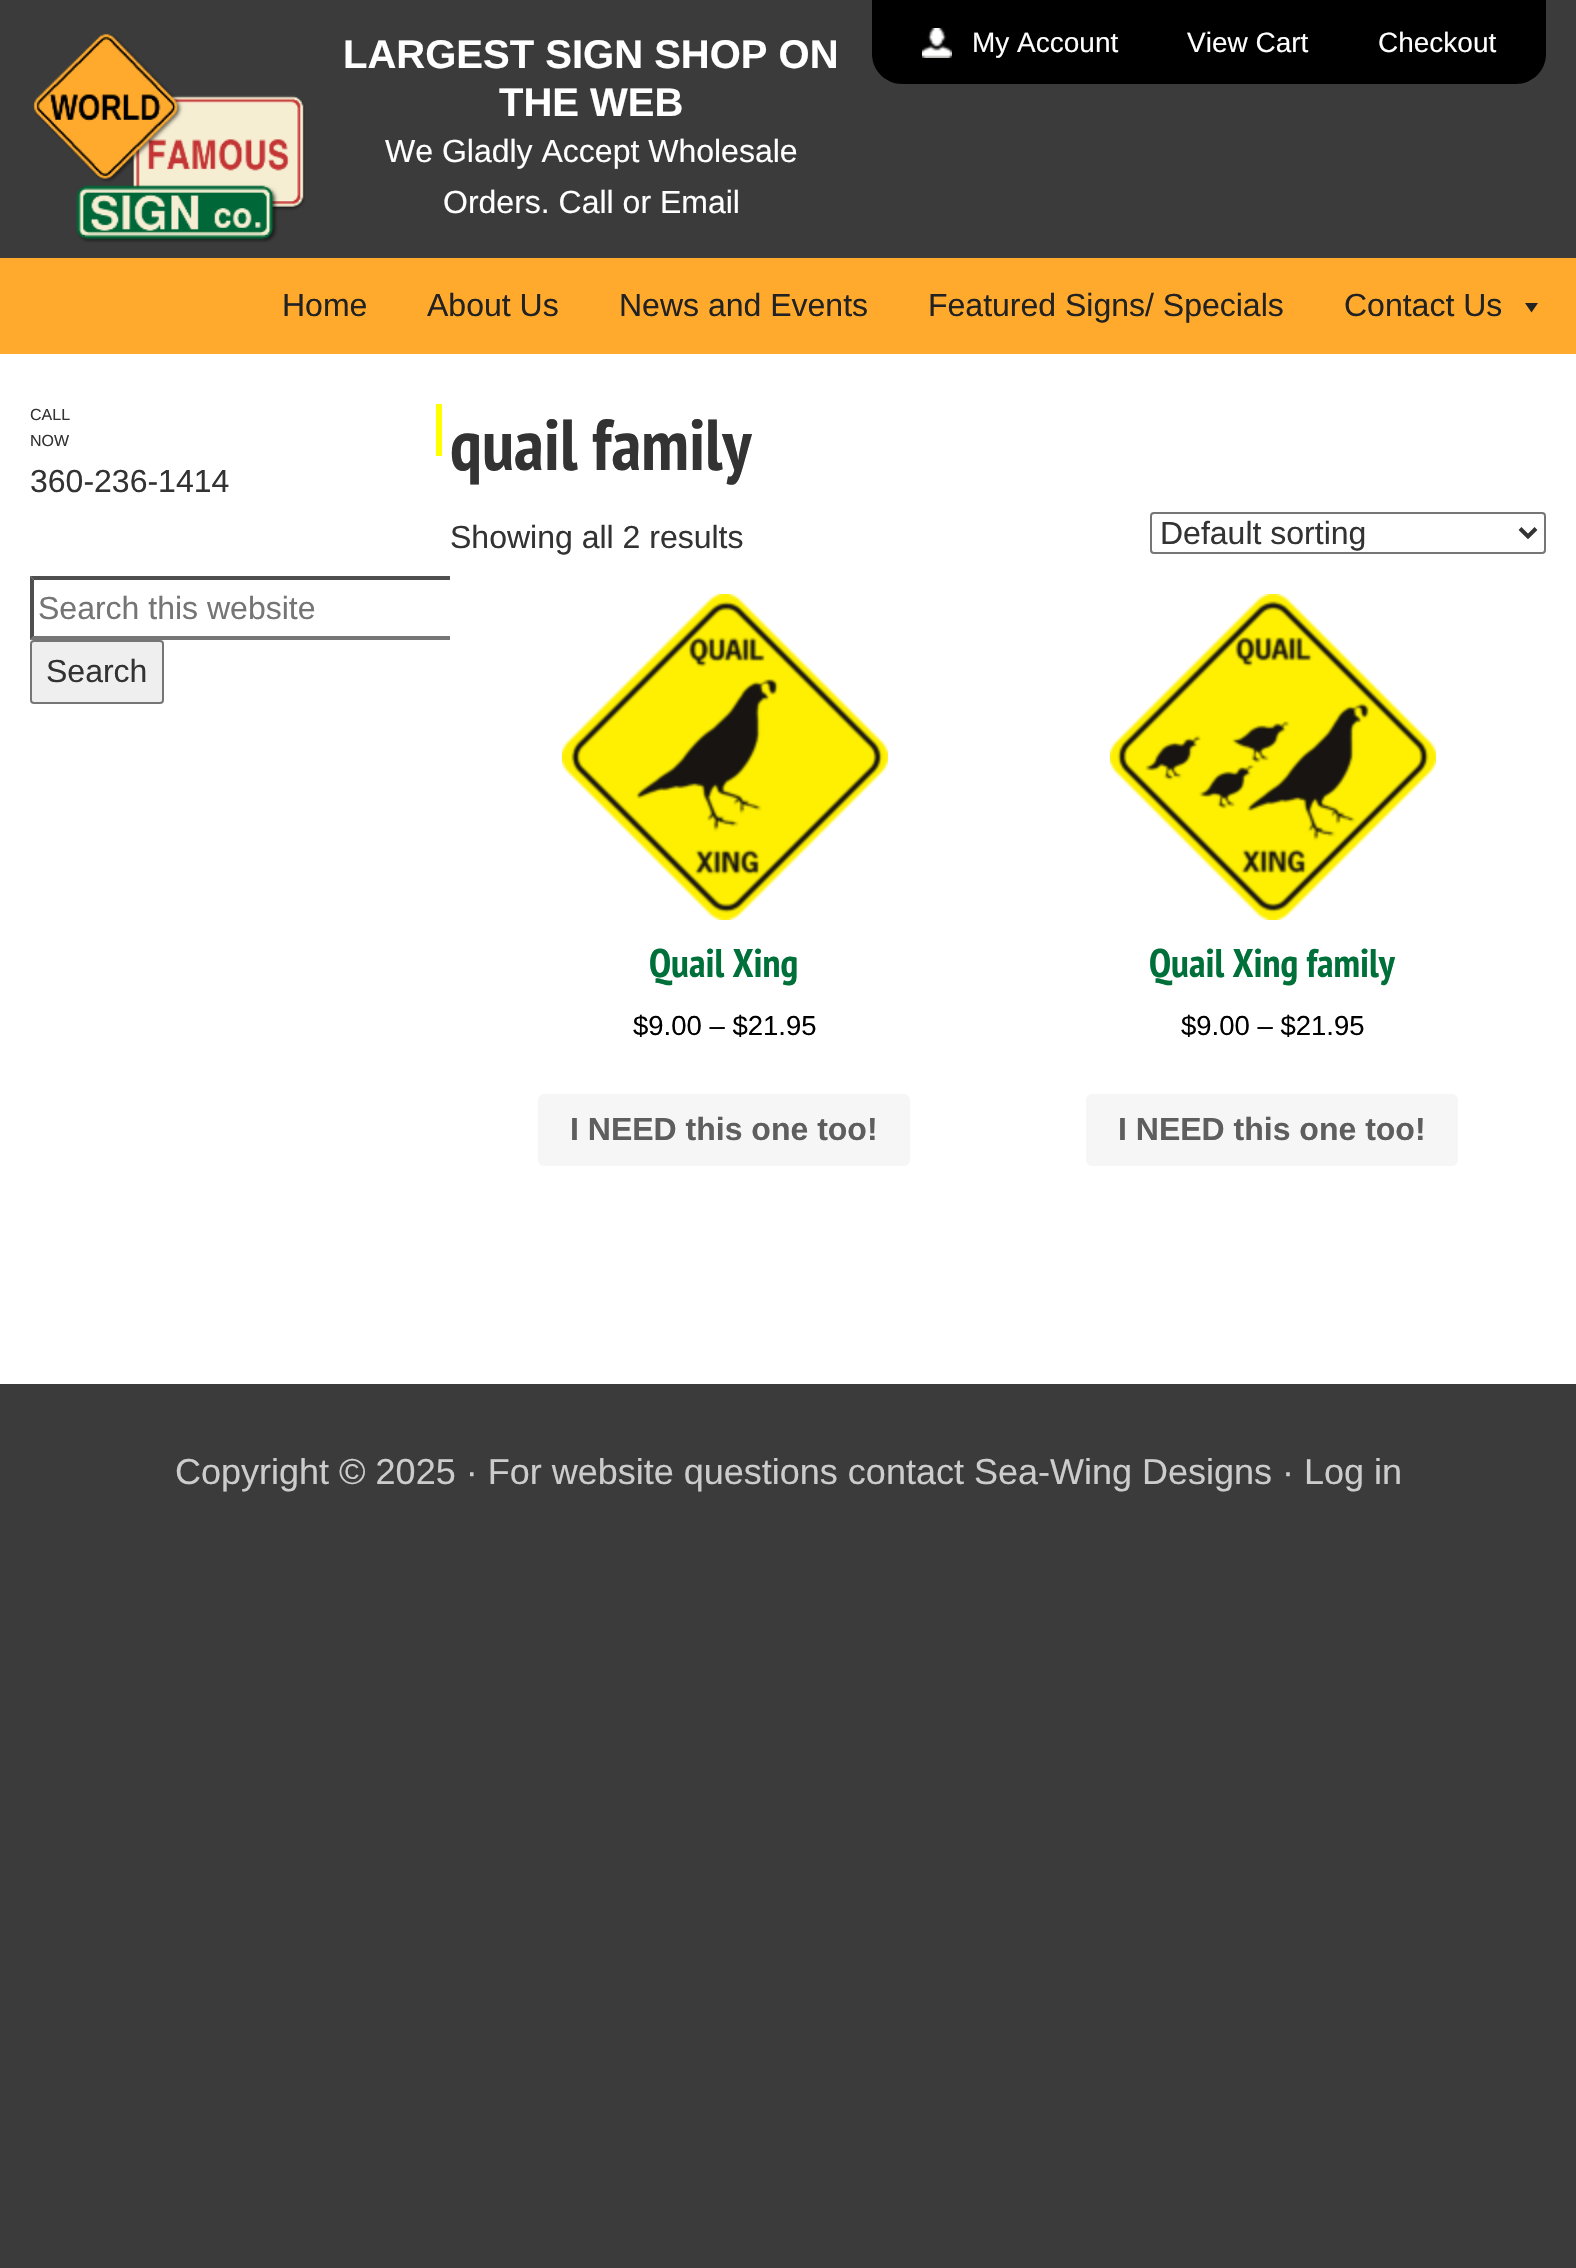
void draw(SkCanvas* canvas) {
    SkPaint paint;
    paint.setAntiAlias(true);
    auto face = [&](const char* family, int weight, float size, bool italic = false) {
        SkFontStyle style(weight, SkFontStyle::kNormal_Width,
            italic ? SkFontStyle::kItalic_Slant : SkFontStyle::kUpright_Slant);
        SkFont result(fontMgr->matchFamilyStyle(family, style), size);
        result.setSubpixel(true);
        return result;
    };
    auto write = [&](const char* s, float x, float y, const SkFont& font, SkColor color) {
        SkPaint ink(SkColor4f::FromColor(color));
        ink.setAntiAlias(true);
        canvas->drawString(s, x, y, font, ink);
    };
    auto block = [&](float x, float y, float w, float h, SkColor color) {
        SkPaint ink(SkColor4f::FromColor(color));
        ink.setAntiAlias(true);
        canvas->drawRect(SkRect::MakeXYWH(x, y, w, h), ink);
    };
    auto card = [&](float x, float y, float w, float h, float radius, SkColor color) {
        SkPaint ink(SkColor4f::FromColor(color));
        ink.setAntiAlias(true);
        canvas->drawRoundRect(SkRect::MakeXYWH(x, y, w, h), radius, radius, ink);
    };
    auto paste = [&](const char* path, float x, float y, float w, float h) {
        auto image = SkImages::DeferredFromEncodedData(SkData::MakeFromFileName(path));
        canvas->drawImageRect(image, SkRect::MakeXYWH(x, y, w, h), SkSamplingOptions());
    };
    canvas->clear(SkColorSetRGB(59, 59, 59));
    paste("pic1.png", 33, 34, 272, 209);
    auto kFont1 = face("Liberation Sans", 700, 40);
    write("LARGEST SIGN SHOP ON", 343, 68, kFont1, SK_ColorWHITE);
    write("THE WEB", 499, 116, kFont1, SK_ColorWHITE);
    auto kFont2 = face("Liberation Sans", 400, 32);
    write("We Gladly Accept Wholesale", 385, 162, kFont2, SK_ColorWHITE);
    write("Orders. Call or Email", 443, 213, kFont2, SK_ColorWHITE);
    paint.setColor(SK_ColorBLACK);
    canvas->drawPath(SkPathBuilder().moveTo(872, 0).lineTo(1546, 0).lineTo(1546, 54).cubicTo(1546, 70.5f, 1532.5f, 84, 1516, 84).lineTo(902, 84).cubicTo(885.5f, 84, 872, 70.5f, 872, 54).close().detach(), paint);
    paste("pic2.png", 922, 28, 30, 30);
    auto kFont3 = face("Liberation Sans", 400, 28);
    write("My Account", 972, 52, kFont3, SK_ColorWHITE);
    write("View Cart", 1187, 52, kFont3, SK_ColorWHITE);
    write("Checkout", 1378, 52, kFont3, SK_ColorWHITE);
    block(0, 258, 1576, 96, SkColorSetRGB(255, 170, 44));
    write("Home", 282, 316, kFont2, SkColorSetRGB(34, 34, 34));
    write("About Us", 427, 316, kFont2, SkColorSetRGB(34, 34, 34));
    write("News and Events", 619, 316, kFont2, SkColorSetRGB(34, 34, 34));
    write("Featured Signs/ Specials", 928, 316, kFont2, SkColorSetRGB(34, 34, 34));
    write("Contact Us", 1344, 316, kFont2, SkColorSetRGB(34, 34, 34));
    paint.setColor(SkColorSetRGB(34, 34, 34));
    canvas->drawPath(SkPathBuilder().moveTo(1538, 303).lineTo(1531.5f, 312.5f).lineTo(1525, 303).close().detach(), paint);
    block(0, 354, 1576, 1030, SK_ColorWHITE);
    block(436, 404, 6, 52, SkColorSetRGB(255, 255, 0));
    auto kFont4 = face("Liberation Sans", 400, 16);
    write("CALL", 30, 420, kFont4, SkColorSetRGB(51, 51, 51));
    write("NOW", 30, 446, kFont4, SkColorSetRGB(51, 51, 51));
    write("360-236-1414", 30, 492, kFont2, SkColorSetRGB(51, 51, 51));
    canvas->save();
    canvas->clipRect(SkRect::MakeXYWH(30, 404, 420, 300));
    paint.setColor(SkColorSetRGB(79, 79, 79));
    canvas->drawPath(SkPathBuilder().moveTo(30, 576).lineTo(460, 576).lineTo(456, 580).lineTo(34, 580).close().detach(), paint);
    paint.setColor(SkColorSetRGB(118, 118, 118));
    canvas->drawPath(SkPathBuilder().moveTo(460, 640).lineTo(30, 640).lineTo(34, 636).lineTo(456, 636).close().detach(), paint);
    canvas->restore();
    paint.setColor(SkColorSetRGB(79, 79, 79));
    canvas->drawPath(SkPathBuilder().moveTo(30, 640).lineTo(30, 576).lineTo(34, 580).lineTo(34, 636).close().detach(), paint);
    write("Search this website", 38, 619, kFont2, SkColorSetRGB(117, 117, 117));
    paint.setColor(SkColorSetRGB(239, 239, 239));
    canvas->drawRoundRect(SkRect::MakeXYWH(31, 641, 132, 62), 3, 3, paint);
    paint.setStyle(SkPaint::kStroke_Style);
    paint.setStrokeWidth(2);
    paint.setColor(SkColorSetRGB(118, 118, 118));
    canvas->drawRoundRect(SkRect::MakeXYWH(31, 641, 132, 62), 3, 3, paint);
    write("Search", 46, 682, kFont2, SkColorSetRGB(51, 51, 51));
    auto kFont5 = face("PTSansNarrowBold", 700, 72);
    write("quail family", 450, 470, kFont5, SkColorSetRGB(51, 51, 51));
    write("Showing all 2 results", 450, 548, kFont2, SkColorSetRGB(51, 51, 51));
    canvas->drawRoundRect(SkRect::MakeXYWH(1151, 513, 394, 40), 3, 3, paint);
    paint.setStrokeWidth(4);
    paint.setColor(SkColorSetRGB(51, 51, 51));
    canvas->drawPath(SkPathBuilder().moveTo(1520, 528.5f).lineTo(1528, 536.5f).lineTo(1536, 528.5f).detach(), paint);
    write("Default sorting", 1160, 544, kFont2, SkColorSetRGB(51, 51, 51));
    paste("pic3.png", 562, 594, 326, 326);
    auto kFont6 = face("PTSansNarrowBold", 700, 40);
    write("Quail Xing", 649, 977, kFont6, SkColorSetRGB(0, 112, 58));
    auto kFont7 = face("Liberation Sans", 400, 27.5f);
    write("$9.00 – $21.95", 633, 1035, kFont7, SK_ColorBLACK);
    card(538, 1094, 372, 72, 6, SkColorSetRGB(247, 246, 247));
    auto kFont8 = face("Liberation Sans", 700, 32);
    write("I NEED this one too!", 570, 1140, kFont8, SkColorSetRGB(94, 94, 94));
    paste("pic4.png", 1110, 594, 326, 326);
    write("Quail Xing family", 1149, 977, kFont6, SkColorSetRGB(0, 112, 58));
    write("$9.00 – $21.95", 1181, 1035, kFont7, SK_ColorBLACK);
    card(1086, 1094, 372, 72, 6, SkColorSetRGB(247, 246, 247));
    write("I NEED this one too!", 1118, 1140, kFont8, SkColorSetRGB(94, 94, 94));
    auto kFont9 = face("Liberation Sans", 400, 36);
    write("Copyright © 2025 · For website questions contact Sea-Wing Designs · Log in", 175, 1484, kFont9, SkColorSetRGB(204, 204, 204));
}
